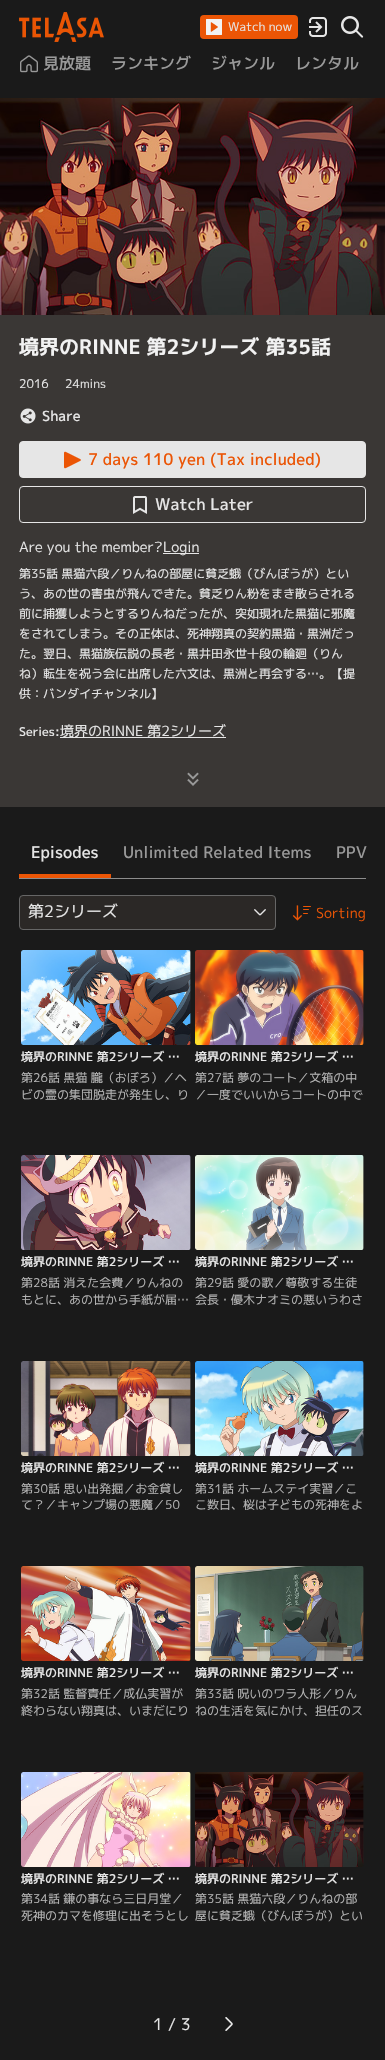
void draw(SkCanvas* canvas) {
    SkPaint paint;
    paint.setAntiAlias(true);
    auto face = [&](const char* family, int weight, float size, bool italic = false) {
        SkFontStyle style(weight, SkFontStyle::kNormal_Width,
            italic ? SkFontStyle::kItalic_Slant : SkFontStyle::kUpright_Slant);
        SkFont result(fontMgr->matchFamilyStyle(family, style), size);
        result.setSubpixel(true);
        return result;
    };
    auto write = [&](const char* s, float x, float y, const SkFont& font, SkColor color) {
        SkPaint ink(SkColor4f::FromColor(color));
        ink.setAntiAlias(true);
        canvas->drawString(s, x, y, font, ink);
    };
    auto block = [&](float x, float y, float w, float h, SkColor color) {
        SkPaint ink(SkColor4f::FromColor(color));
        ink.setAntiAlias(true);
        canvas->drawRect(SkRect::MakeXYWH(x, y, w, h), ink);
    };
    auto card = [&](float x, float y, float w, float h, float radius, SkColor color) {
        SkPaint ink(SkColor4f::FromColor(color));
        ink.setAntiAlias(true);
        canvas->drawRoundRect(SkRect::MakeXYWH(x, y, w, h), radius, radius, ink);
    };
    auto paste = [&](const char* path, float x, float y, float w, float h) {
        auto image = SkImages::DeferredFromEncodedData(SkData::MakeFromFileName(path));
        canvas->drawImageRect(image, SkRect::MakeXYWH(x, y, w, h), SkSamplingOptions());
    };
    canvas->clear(SkColorSetRGB(26, 26, 26));
    paste("pic1.png", 19, 12, 85, 30);
    card(200, 15, 98, 24, 4, SkColorSetRGB(235, 85, 5));
    paste("pic2.png", 206, 19, 16, 16);
    auto kFont1 = face("M PLUS 1p", 400, 12);
    write("Watch now", 228, 31, kFont1, SkColorSetRGB(230, 230, 230));
    paste("pic3.png", 309, 17, 18, 20);
    paste("pic4.png", 341, 16, 23, 22);
    paste("pic5.png", 20, 55, 18, 18);
    auto kFont2 = face("M PLUS 1p", 500, 16);
    write("見放題", 43, 69, kFont2, SkColorSetRGB(153, 153, 153));
    write("ランキング", 111, 69, kFont2, SkColorSetRGB(153, 153, 153));
    write("ジャンル", 211, 69, kFont2, SkColorSetRGB(153, 153, 153));
    write("レンタル", 295, 69, kFont2, SkColorSetRGB(153, 153, 153));
    block(0, 315, 385, 492, SkColorSetRGB(58, 55, 53));
    paste("pic6.png", 0, 98, 385, 217);
    auto kFont3 = face("M PLUS 1p", 700, 20);
    write("境界のRINNE 第2シリーズ 第35話", 19, 354, kFont3, SkColorSetRGB(242, 242, 242));
    write("2016", 19, 388, kFont1, SkColorSetRGB(230, 230, 230));
    write("24mins", 65, 388, kFont1, SkColorSetRGB(230, 230, 230));
    paste("pic7.png", 20, 408, 16, 16);
    auto kFont4 = face("M PLUS 1p", 500, 14);
    write("Share", 42, 421, kFont4, SkColorSetRGB(230, 230, 230));
    paint.setColor(SkColorSetRGB(230, 230, 230));
    canvas->drawRoundRect(SkRect::MakeXYWH(19.5f, 441.5f, 346, 36), 3.5f, 3.5f, paint);
    paint.setStyle(SkPaint::kStroke_Style);
    paint.setStrokeWidth(1);
    canvas->drawRoundRect(SkRect::MakeXYWH(19.5f, 441.5f, 346, 36), 3.5f, 3.5f, paint);
    paste("pic8.png", 64, 451, 17, 18);
    write("7 days 110 yen (Tax included)", 88, 465, kFont2, SkColorSetRGB(235, 85, 5));
    canvas->drawRoundRect(SkRect::MakeXYWH(19.5f, 486.5f, 346, 36), 3.5f, 3.5f, paint);
    paste("pic9.png", 133, 496, 14, 18);
    write("Watch Later", 155, 510, kFont2, SkColorSetRGB(230, 230, 230));
    auto kFont5 = face("M PLUS 1p", 400, 14);
    write("Are you the member?", 19, 552, kFont5, SkColorSetRGB(230, 230, 230));
    block(163, 553, 36, 1, SkColorSetRGB(230, 230, 230));
    write("Login", 163, 552, kFont5, SkColorSetRGB(230, 230, 230));
    write("第35話 黒猫六段／りんねの部屋に貧乏蛾（びんぼうが）とい", 19, 578, kFont1, SkColorSetRGB(230, 230, 230));
    write("う、あの世の害虫が飛んできた。貧乏りん粉をまき散らされる", 19, 598, kFont1, SkColorSetRGB(230, 230, 230));
    write("前に捕獲しようとするりんねだったが、突如現れた黒猫に邪魔", 19, 618, kFont1, SkColorSetRGB(230, 230, 230));
    write("をされてしまう。その正体は、死神翔真の契約黒猫・黒洲だっ", 19, 638, kFont1, SkColorSetRGB(230, 230, 230));
    write("た。翌日、黒猫族伝説の長老・黒井田永世十段の輪廻（りん", 19, 658, kFont1, SkColorSetRGB(230, 230, 230));
    write("ね）転生を祝う会に出席した六文は、黒洲と再会する…。【提", 19, 678, kFont1, SkColorSetRGB(230, 230, 230));
    write("供：バンダイチャンネル】", 19, 698, kFont1, SkColorSetRGB(230, 230, 230));
    auto kFont6 = face("M PLUS 1p", 500, 12);
    write("Series:", 19, 736, kFont6, SkColorSetRGB(230, 230, 230));
    block(60, 737, 166, 1, SkColorSetRGB(230, 230, 230));
    write("境界のRINNE 第2シリーズ", 60, 736, kFont5, SkColorSetRGB(230, 230, 230));
    paste("pic10.png", 187, 772, 12, 14);
    block(19, 878, 347, 1, SkColorSetRGB(141, 141, 141));
    block(19, 874, 92, 4, SkColorSetRGB(235, 85, 5));
    write("Episodes", 31, 858, kFont2, SkColorSetRGB(230, 230, 230));
    write("Unlimited Related Items", 123, 858, kFont2, SkColorSetRGB(153, 153, 153));
    write("PPV", 336, 858, kFont2, SkColorSetRGB(153, 153, 153));
    paint.setStyle(SkPaint::kFill_Style);
    paint.setColor(SkColorSetRGB(43, 40, 38));
    canvas->drawRoundRect(SkRect::MakeXYWH(19.5f, 895.5f, 256, 34), 3.5f, 3.5f, paint);
    paint.setStyle(SkPaint::kStroke_Style);
    paint.setColor(SkColorSetRGB(102, 102, 102));
    canvas->drawRoundRect(SkRect::MakeXYWH(19.5f, 895.5f, 256, 34), 3.5f, 3.5f, paint);
    auto kFont7 = face("M PLUS 1p", 400, 16);
    write("第2シリーズ", 28, 917, kFont7, SkColorSetRGB(230, 230, 230));
    paste("pic11.png", 254, 909, 12, 7);
    paste("pic12.png", 292, 905, 19, 16);
    write("Sorting", 316, 918, kFont5, SkColorSetRGB(235, 85, 5));
    paste("pic13.png", 21, 950, 170, 95);
    write("境界のRINNE 第2シリーズ …", 21, 1061, kFont6, SkColorSetRGB(230, 230, 230));
    write("第26話 黒猫 朧（おぼろ）／ヘ", 21, 1082, kFont1, SkColorSetRGB(179, 179, 179));
    write("ビの霊の集団脱走が発生し、り", 21, 1099, kFont1, SkColorSetRGB(179, 179, 179));
    paste("pic14.png", 195, 950, 169, 95);
    canvas->save();
    canvas->clipRect(SkRect::MakeXYWH(195, 1049, 169, 17));
    write("境界のRINNE 第2シリーズ …", 195, 1061, kFont6, SkColorSetRGB(230, 230, 230));
    canvas->restore();
    write("第27話 夢のコート／文箱の中", 195, 1082, kFont1, SkColorSetRGB(179, 179, 179));
    write("／一度でいいからコートの中で", 195, 1099, kFont1, SkColorSetRGB(179, 179, 179));
    paste("pic15.png", 21, 1155, 170, 95);
    write("境界のRINNE 第2シリーズ …", 21, 1266, kFont6, SkColorSetRGB(230, 230, 230));
    write("第28話 消えた会費／りんねの", 21, 1287, kFont1, SkColorSetRGB(179, 179, 179));
    write("もとに、あの世から手紙が届…", 21, 1304, kFont1, SkColorSetRGB(179, 179, 179));
    paste("pic16.png", 195, 1155, 169, 95);
    canvas->save();
    canvas->clipRect(SkRect::MakeXYWH(195, 1254, 169, 17));
    write("境界のRINNE 第2シリーズ …", 195, 1266, kFont6, SkColorSetRGB(230, 230, 230));
    canvas->restore();
    write("第29話 愛の歌／尊敬する生徒", 195, 1287, kFont1, SkColorSetRGB(179, 179, 179));
    write("会長・優木ナオミの悪いうわさ", 195, 1304, kFont1, SkColorSetRGB(179, 179, 179));
    paste("pic17.png", 21, 1361, 170, 95);
    write("境界のRINNE 第2シリーズ …", 21, 1472, kFont6, SkColorSetRGB(230, 230, 230));
    write("第30話 思い出発掘／お金貸し", 21, 1493, kFont1, SkColorSetRGB(179, 179, 179));
    write("て？／キャンプ場の悪魔／50", 21, 1509, kFont1, SkColorSetRGB(179, 179, 179));
    paste("pic18.png", 195, 1361, 169, 95);
    canvas->save();
    canvas->clipRect(SkRect::MakeXYWH(195, 1460, 169, 17));
    write("境界のRINNE 第2シリーズ …", 195, 1472, kFont6, SkColorSetRGB(230, 230, 230));
    canvas->restore();
    write("第31話 ホームステイ実習／こ", 195, 1493, kFont1, SkColorSetRGB(179, 179, 179));
    write("こ数日、桜は子どもの死神をよ", 195, 1509, kFont1, SkColorSetRGB(179, 179, 179));
    paste("pic19.png", 21, 1566, 170, 95);
    write("境界のRINNE 第2シリーズ …", 21, 1677, kFont6, SkColorSetRGB(230, 230, 230));
    write("第32話 監督責任／成仏実習が", 21, 1698, kFont1, SkColorSetRGB(179, 179, 179));
    write("終わらない翔真は、いまだにり", 21, 1715, kFont1, SkColorSetRGB(179, 179, 179));
    paste("pic20.png", 195, 1566, 169, 95);
    canvas->save();
    canvas->clipRect(SkRect::MakeXYWH(195, 1665, 169, 17));
    write("境界のRINNE 第2シリーズ …", 195, 1677, kFont6, SkColorSetRGB(230, 230, 230));
    canvas->restore();
    write("第33話 呪いのワラ人形／りん", 195, 1698, kFont1, SkColorSetRGB(179, 179, 179));
    write("ねの生活を気にかけ、担任のス", 195, 1715, kFont1, SkColorSetRGB(179, 179, 179));
    paste("pic21.png", 21, 1772, 170, 95);
    write("境界のRINNE 第2シリーズ …", 21, 1883, kFont6, SkColorSetRGB(230, 230, 230));
    write("第34話 鎌の事なら三日月堂／", 21, 1903, kFont1, SkColorSetRGB(179, 179, 179));
    write("死神のカマを修理に出そうとし", 21, 1920, kFont1, SkColorSetRGB(179, 179, 179));
    paste("pic22.png", 195, 1772, 169, 95);
    canvas->save();
    canvas->clipRect(SkRect::MakeXYWH(195, 1871, 169, 16));
    write("境界のRINNE 第2シリーズ …", 195, 1883, kFont6, SkColorSetRGB(230, 230, 230));
    canvas->restore();
    write("第35話 黒猫六段／りんねの部", 195, 1903, kFont1, SkColorSetRGB(179, 179, 179));
    write("屋に貧乏蛾（びんぼうが）とい", 195, 1920, kFont1, SkColorSetRGB(179, 179, 179));
    write("1", 153, 2030, kFont7, SkColorSetRGB(230, 230, 230));
    write("/ 3", 168, 2030, kFont7, SkColorSetRGB(230, 230, 230));
    paste("pic23.png", 225, 2017, 8, 14);
}
